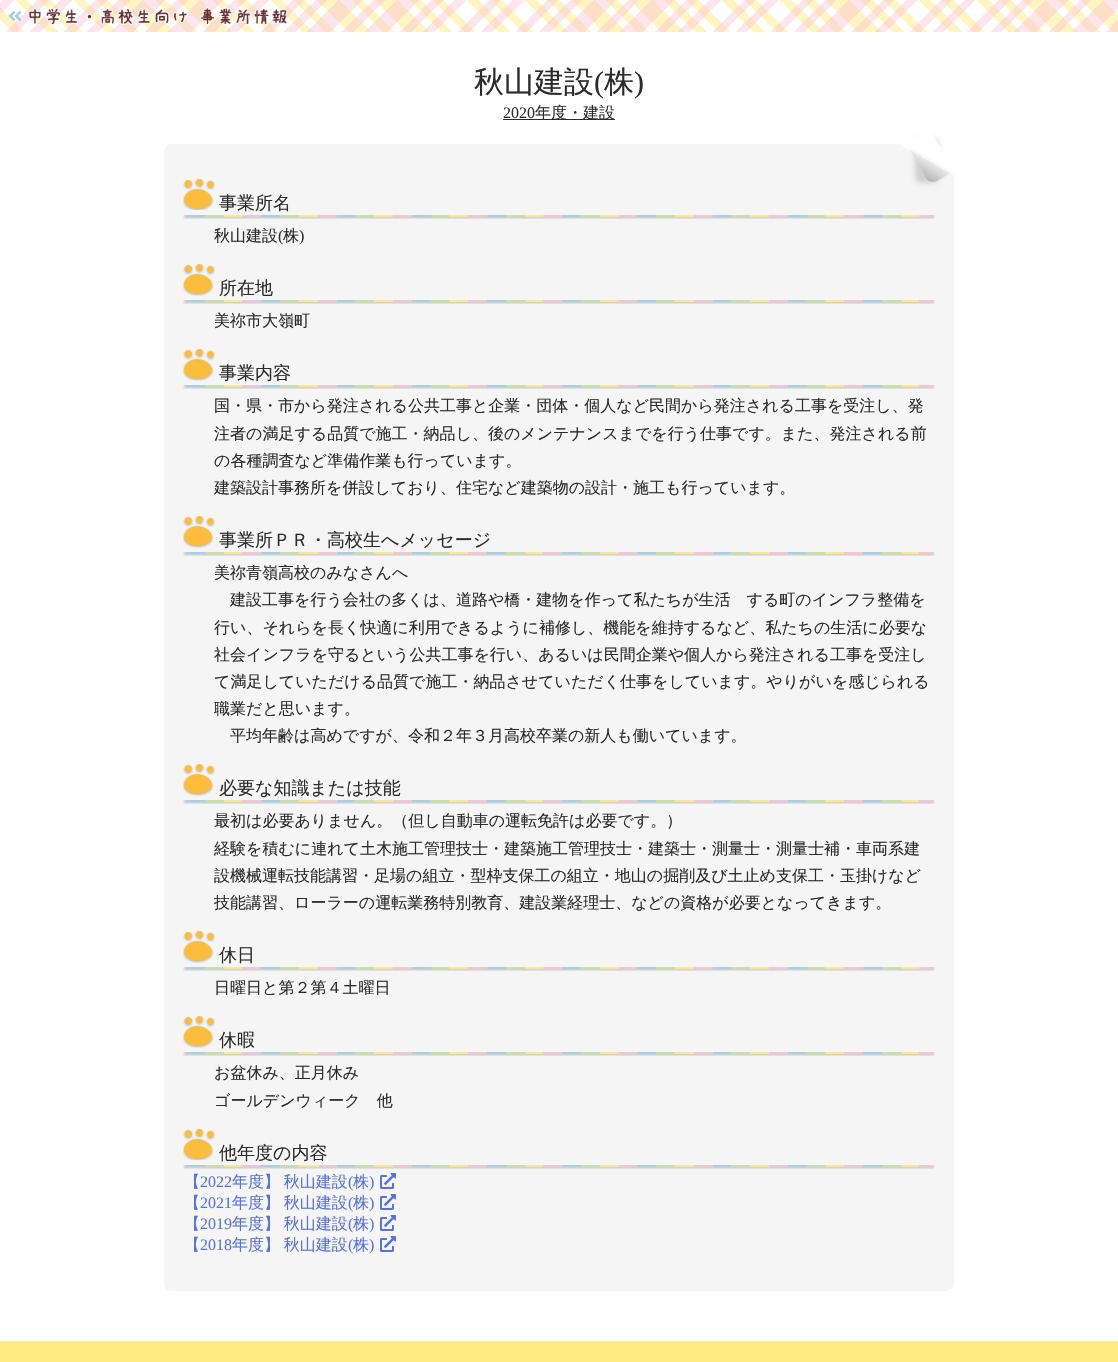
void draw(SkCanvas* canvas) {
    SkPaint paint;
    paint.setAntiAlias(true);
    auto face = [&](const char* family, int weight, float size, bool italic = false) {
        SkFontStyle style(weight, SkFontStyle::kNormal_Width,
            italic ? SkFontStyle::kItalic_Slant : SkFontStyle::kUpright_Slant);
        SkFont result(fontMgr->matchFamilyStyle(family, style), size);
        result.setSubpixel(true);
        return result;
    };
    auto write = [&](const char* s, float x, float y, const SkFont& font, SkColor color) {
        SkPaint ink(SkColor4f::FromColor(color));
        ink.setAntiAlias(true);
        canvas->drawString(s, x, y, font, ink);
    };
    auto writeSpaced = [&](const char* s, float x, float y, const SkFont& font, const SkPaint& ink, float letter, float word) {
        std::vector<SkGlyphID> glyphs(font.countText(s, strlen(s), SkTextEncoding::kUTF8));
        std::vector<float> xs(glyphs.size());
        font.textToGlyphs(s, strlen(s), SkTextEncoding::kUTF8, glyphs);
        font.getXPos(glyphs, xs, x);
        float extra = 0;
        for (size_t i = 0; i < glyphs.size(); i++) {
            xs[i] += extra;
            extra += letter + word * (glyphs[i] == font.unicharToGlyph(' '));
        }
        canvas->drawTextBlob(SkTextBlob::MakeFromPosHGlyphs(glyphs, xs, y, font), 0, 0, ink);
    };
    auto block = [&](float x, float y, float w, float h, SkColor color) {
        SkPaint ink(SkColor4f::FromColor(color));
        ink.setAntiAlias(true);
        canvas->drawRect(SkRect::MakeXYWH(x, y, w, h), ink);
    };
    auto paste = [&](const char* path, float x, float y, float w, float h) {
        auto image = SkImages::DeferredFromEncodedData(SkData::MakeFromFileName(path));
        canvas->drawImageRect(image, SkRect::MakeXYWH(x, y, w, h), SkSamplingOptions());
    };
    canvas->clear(SK_ColorWHITE);
    {
        const SkColor colors[] = {SK_ColorWHITE, SK_ColorWHITE, SkColorSetRGB(255, 245, 193), SkColorSetRGB(255, 245, 193), SK_ColorWHITE, SK_ColorWHITE, SkColorSetRGB(255, 245, 193), SkColorSetRGB(255, 245, 193), SK_ColorWHITE, SK_ColorWHITE, SkColorSetRGB(255, 245, 193), SkColorSetRGB(255, 245, 193), SK_ColorWHITE, SK_ColorWHITE, SkColorSetRGB(255, 245, 193), SkColorSetRGB(255, 245, 193), SK_ColorWHITE, SK_ColorWHITE, SkColorSetRGB(255, 245, 193), SkColorSetRGB(255, 245, 193), SK_ColorWHITE, SK_ColorWHITE, SkColorSetRGB(255, 245, 193), SkColorSetRGB(255, 245, 193), SK_ColorWHITE, SK_ColorWHITE, SkColorSetRGB(255, 245, 193), SkColorSetRGB(255, 245, 193), SK_ColorWHITE, SK_ColorWHITE, SkColorSetRGB(255, 245, 193), SkColorSetRGB(255, 245, 193), SK_ColorWHITE, SK_ColorWHITE, SkColorSetRGB(255, 245, 193), SkColorSetRGB(255, 245, 193), SK_ColorWHITE, SK_ColorWHITE, SkColorSetRGB(255, 245, 193), SkColorSetRGB(255, 245, 193), SK_ColorWHITE, SK_ColorWHITE, SkColorSetRGB(255, 245, 193), SkColorSetRGB(255, 245, 193), SK_ColorWHITE, SK_ColorWHITE, SkColorSetRGB(255, 245, 193), SkColorSetRGB(255, 245, 193), SK_ColorWHITE, SK_ColorWHITE, SkColorSetRGB(255, 245, 193), SkColorSetRGB(255, 245, 193), SK_ColorWHITE, SK_ColorWHITE, SkColorSetRGB(255, 245, 193), SkColorSetRGB(255, 245, 193), SK_ColorWHITE, SK_ColorWHITE, SkColorSetRGB(255, 245, 193), SkColorSetRGB(255, 245, 193), SK_ColorWHITE, SK_ColorWHITE, SkColorSetRGB(255, 245, 193), SkColorSetRGB(255, 245, 193), SK_ColorWHITE, SK_ColorWHITE, SkColorSetRGB(255, 245, 193), SkColorSetRGB(255, 245, 193), SK_ColorWHITE, SK_ColorWHITE, SkColorSetRGB(255, 245, 193), SkColorSetRGB(255, 245, 193), SK_ColorWHITE, SK_ColorWHITE, SkColorSetRGB(255, 245, 193), SkColorSetRGB(255, 245, 193), SK_ColorWHITE, SK_ColorWHITE, SkColorSetRGB(255, 245, 193), SkColorSetRGB(255, 245, 193), SK_ColorWHITE, SK_ColorWHITE, SkColorSetRGB(255, 245, 193), SkColorSetRGB(255, 245, 193), SK_ColorWHITE, SK_ColorWHITE, SkColorSetRGB(255, 245, 193), SkColorSetRGB(255, 245, 193), SK_ColorWHITE, SK_ColorWHITE, SkColorSetRGB(255, 245, 193), SkColorSetRGB(255, 245, 193), SK_ColorWHITE, SK_ColorWHITE, SkColorSetRGB(255, 245, 193), SkColorSetRGB(255, 245, 193), SK_ColorWHITE, SK_ColorWHITE, SkColorSetRGB(255, 245, 193), SkColorSetRGB(255, 245, 193), SK_ColorWHITE, SK_ColorWHITE, SkColorSetRGB(255, 245, 193), SkColorSetRGB(255, 245, 193), SK_ColorWHITE, SK_ColorWHITE, SkColorSetRGB(255, 245, 193), SkColorSetRGB(255, 245, 193), SK_ColorWHITE, SK_ColorWHITE, SkColorSetRGB(255, 245, 193), SkColorSetRGB(255, 245, 193), SK_ColorWHITE, SK_ColorWHITE, SkColorSetRGB(255, 245, 193), SkColorSetRGB(255, 245, 193), SK_ColorWHITE, SK_ColorWHITE, SkColorSetRGB(255, 245, 193), SkColorSetRGB(255, 245, 193), SK_ColorWHITE, SK_ColorWHITE, SkColorSetRGB(255, 245, 193), SkColorSetRGB(255, 245, 193), SK_ColorWHITE, SK_ColorWHITE, SkColorSetRGB(255, 245, 193), SkColorSetRGB(255, 245, 193), SK_ColorWHITE, SK_ColorWHITE, SkColorSetRGB(255, 245, 193), SkColorSetRGB(255, 245, 193), SK_ColorWHITE, SK_ColorWHITE, SkColorSetRGB(255, 245, 193), SkColorSetRGB(255, 245, 193), SK_ColorWHITE, SK_ColorWHITE, SkColorSetRGB(255, 245, 193), SkColorSetRGB(255, 245, 193), SK_ColorWHITE, SK_ColorWHITE, SkColorSetRGB(255, 245, 193), SkColorSetRGB(255, 245, 193), SK_ColorWHITE, SK_ColorWHITE, SkColorSetRGB(255, 245, 193), SkColorSetRGB(255, 245, 193), SK_ColorWHITE, SK_ColorWHITE, SkColorSetRGB(255, 245, 193), SkColorSetRGB(255, 245, 193), SK_ColorWHITE, SK_ColorWHITE, SkColorSetRGB(255, 245, 193), SkColorSetRGB(255, 245, 193), SK_ColorWHITE, SK_ColorWHITE, SkColorSetRGB(255, 245, 193), SkColorSetRGB(255, 245, 193), SK_ColorWHITE, SK_ColorWHITE, SkColorSetRGB(255, 245, 193), SkColorSetRGB(255, 245, 193)};
        const float stops[] = {0, 0.01f, 0.01f, 0.02f, 0.02f, 0.04f, 0.04f, 0.05f, 0.05f, 0.06f, 0.06f, 0.07f, 0.07f, 0.09f, 0.09f, 0.1f, 0.1f, 0.11f, 0.11f, 0.12f, 0.12f, 0.13f, 0.13f, 0.15f, 0.15f, 0.16f, 0.16f, 0.17f, 0.17f, 0.18f, 0.18f, 0.2f, 0.2f, 0.21f, 0.21f, 0.22f, 0.22f, 0.23f, 0.23f, 0.24f, 0.24f, 0.26f, 0.26f, 0.27f, 0.27f, 0.28f, 0.28f, 0.29f, 0.29f, 0.3f, 0.3f, 0.32f, 0.32f, 0.33f, 0.33f, 0.34f, 0.34f, 0.35f, 0.35f, 0.37f, 0.37f, 0.38f, 0.38f, 0.39f, 0.39f, 0.4f, 0.4f, 0.41f, 0.41f, 0.43f, 0.43f, 0.44f, 0.44f, 0.45f, 0.45f, 0.46f, 0.46f, 0.48f, 0.48f, 0.49f, 0.49f, 0.5f, 0.5f, 0.51f, 0.51f, 0.52f, 0.52f, 0.54f, 0.54f, 0.55f, 0.55f, 0.56f, 0.56f, 0.57f, 0.57f, 0.59f, 0.59f, 0.6f, 0.6f, 0.61f, 0.61f, 0.62f, 0.62f, 0.63f, 0.63f, 0.65f, 0.65f, 0.66f, 0.66f, 0.67f, 0.67f, 0.68f, 0.68f, 0.7f, 0.7f, 0.71f, 0.71f, 0.72f, 0.72f, 0.73f, 0.73f, 0.74f, 0.74f, 0.76f, 0.76f, 0.77f, 0.77f, 0.78f, 0.78f, 0.79f, 0.79f, 0.8f, 0.8f, 0.82f, 0.82f, 0.83f, 0.83f, 0.84f, 0.84f, 0.85f, 0.85f, 0.87f, 0.87f, 0.88f, 0.88f, 0.89f, 0.89f, 0.9f, 0.9f, 0.91f, 0.91f, 0.93f, 0.93f, 0.94f, 0.94f, 0.95f, 0.95f, 0.96f, 0.96f, 0.98f, 0.98f, 0.99f, 0.99f, 1};
        const SkPoint ends[] = {{272, 303}, {851, -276}};
        paint.setShader(SkGradientShader::MakeLinear(ends, colors, stops, 164, SkTileMode::kClamp));
        paint.setAlpha(255);
    }
    canvas->drawRect(SkRect::MakeXYWH(0, 0, 1118, 32), paint);
    {
        const SkColor colors[] = {SkColorSetARGB(102, 250, 190, 210), SkColorSetARGB(102, 250, 190, 210), SkColorSetARGB(0, 250, 190, 210), SkColorSetARGB(0, 250, 190, 210), SkColorSetARGB(102, 250, 190, 210), SkColorSetARGB(102, 250, 190, 210), SkColorSetARGB(0, 250, 190, 210), SkColorSetARGB(0, 250, 190, 210), SkColorSetARGB(102, 250, 190, 210), SkColorSetARGB(102, 250, 190, 210), SkColorSetARGB(0, 250, 190, 210), SkColorSetARGB(0, 250, 190, 210), SkColorSetARGB(102, 250, 190, 210), SkColorSetARGB(102, 250, 190, 210), SkColorSetARGB(0, 250, 190, 210), SkColorSetARGB(0, 250, 190, 210), SkColorSetARGB(102, 250, 190, 210), SkColorSetARGB(102, 250, 190, 210), SkColorSetARGB(0, 250, 190, 210), SkColorSetARGB(0, 250, 190, 210), SkColorSetARGB(102, 250, 190, 210), SkColorSetARGB(102, 250, 190, 210), SkColorSetARGB(0, 250, 190, 210), SkColorSetARGB(0, 250, 190, 210), SkColorSetARGB(102, 250, 190, 210), SkColorSetARGB(102, 250, 190, 210), SkColorSetARGB(0, 250, 190, 210), SkColorSetARGB(0, 250, 190, 210), SkColorSetARGB(102, 250, 190, 210), SkColorSetARGB(102, 250, 190, 210), SkColorSetARGB(0, 250, 190, 210), SkColorSetARGB(0, 250, 190, 210), SkColorSetARGB(102, 250, 190, 210), SkColorSetARGB(102, 250, 190, 210), SkColorSetARGB(0, 250, 190, 210), SkColorSetARGB(0, 250, 190, 210), SkColorSetARGB(102, 250, 190, 210), SkColorSetARGB(102, 250, 190, 210), SkColorSetARGB(0, 250, 190, 210), SkColorSetARGB(0, 250, 190, 210), SkColorSetARGB(102, 250, 190, 210), SkColorSetARGB(102, 250, 190, 210), SkColorSetARGB(0, 250, 190, 210), SkColorSetARGB(0, 250, 190, 210), SkColorSetARGB(102, 250, 190, 210), SkColorSetARGB(102, 250, 190, 210), SkColorSetARGB(0, 250, 190, 210), SkColorSetARGB(0, 250, 190, 210), SkColorSetARGB(102, 250, 190, 210), SkColorSetARGB(102, 250, 190, 210), SkColorSetARGB(0, 250, 190, 210), SkColorSetARGB(0, 250, 190, 210), SkColorSetARGB(102, 250, 190, 210), SkColorSetARGB(102, 250, 190, 210), SkColorSetARGB(0, 250, 190, 210), SkColorSetARGB(0, 250, 190, 210), SkColorSetARGB(102, 250, 190, 210), SkColorSetARGB(102, 250, 190, 210), SkColorSetARGB(0, 250, 190, 210), SkColorSetARGB(0, 250, 190, 210), SkColorSetARGB(102, 250, 190, 210), SkColorSetARGB(102, 250, 190, 210), SkColorSetARGB(0, 250, 190, 210), SkColorSetARGB(0, 250, 190, 210), SkColorSetARGB(102, 250, 190, 210), SkColorSetARGB(102, 250, 190, 210), SkColorSetARGB(0, 250, 190, 210), SkColorSetARGB(0, 250, 190, 210), SkColorSetARGB(102, 250, 190, 210), SkColorSetARGB(102, 250, 190, 210), SkColorSetARGB(0, 250, 190, 210), SkColorSetARGB(0, 250, 190, 210), SkColorSetARGB(102, 250, 190, 210), SkColorSetARGB(102, 250, 190, 210), SkColorSetARGB(0, 250, 190, 210), SkColorSetARGB(0, 250, 190, 210), SkColorSetARGB(102, 250, 190, 210), SkColorSetARGB(102, 250, 190, 210), SkColorSetARGB(0, 250, 190, 210), SkColorSetARGB(0, 250, 190, 210), SkColorSetARGB(102, 250, 190, 210), SkColorSetARGB(102, 250, 190, 210), SkColorSetARGB(0, 250, 190, 210), SkColorSetARGB(0, 250, 190, 210), SkColorSetARGB(102, 250, 190, 210), SkColorSetARGB(102, 250, 190, 210), SkColorSetARGB(0, 250, 190, 210), SkColorSetARGB(0, 250, 190, 210), SkColorSetARGB(102, 250, 190, 210), SkColorSetARGB(102, 250, 190, 210), SkColorSetARGB(0, 250, 190, 210), SkColorSetARGB(0, 250, 190, 210), SkColorSetARGB(102, 250, 190, 210), SkColorSetARGB(102, 250, 190, 210), SkColorSetARGB(0, 250, 190, 210), SkColorSetARGB(0, 250, 190, 210), SkColorSetARGB(102, 250, 190, 210), SkColorSetARGB(102, 250, 190, 210), SkColorSetARGB(0, 250, 190, 210), SkColorSetARGB(0, 250, 190, 210), SkColorSetARGB(102, 250, 190, 210), SkColorSetARGB(102, 250, 190, 210), SkColorSetARGB(0, 250, 190, 210), SkColorSetARGB(0, 250, 190, 210), SkColorSetARGB(102, 250, 190, 210), SkColorSetARGB(102, 250, 190, 210), SkColorSetARGB(0, 250, 190, 210), SkColorSetARGB(0, 250, 190, 210), SkColorSetARGB(102, 250, 190, 210), SkColorSetARGB(102, 250, 190, 210), SkColorSetARGB(0, 250, 190, 210), SkColorSetARGB(0, 250, 190, 210), SkColorSetARGB(102, 250, 190, 210), SkColorSetARGB(102, 250, 190, 210), SkColorSetARGB(0, 250, 190, 210), SkColorSetARGB(0, 250, 190, 210), SkColorSetARGB(102, 250, 190, 210), SkColorSetARGB(102, 250, 190, 210), SkColorSetARGB(0, 250, 190, 210), SkColorSetARGB(0, 250, 190, 210), SkColorSetARGB(102, 250, 190, 210), SkColorSetARGB(102, 250, 190, 210), SkColorSetARGB(0, 250, 190, 210), SkColorSetARGB(0, 250, 190, 210), SkColorSetARGB(102, 250, 190, 210), SkColorSetARGB(102, 250, 190, 210), SkColorSetARGB(0, 250, 190, 210), SkColorSetARGB(0, 250, 190, 210), SkColorSetARGB(102, 250, 190, 210), SkColorSetARGB(102, 250, 190, 210), SkColorSetARGB(0, 250, 190, 210), SkColorSetARGB(0, 250, 190, 210), SkColorSetARGB(102, 250, 190, 210), SkColorSetARGB(102, 250, 190, 210), SkColorSetARGB(0, 250, 190, 210), SkColorSetARGB(0, 250, 190, 210), SkColorSetARGB(102, 250, 190, 210), SkColorSetARGB(102, 250, 190, 210), SkColorSetARGB(0, 250, 190, 210), SkColorSetARGB(0, 250, 190, 210), SkColorSetARGB(102, 250, 190, 210), SkColorSetARGB(102, 250, 190, 210), SkColorSetARGB(0, 250, 190, 210), SkColorSetARGB(0, 250, 190, 210), SkColorSetARGB(102, 250, 190, 210), SkColorSetARGB(102, 250, 190, 210), SkColorSetARGB(0, 250, 190, 210), SkColorSetARGB(0, 250, 190, 210), SkColorSetARGB(102, 250, 190, 210), SkColorSetARGB(102, 250, 190, 210), SkColorSetARGB(0, 250, 190, 210), SkColorSetARGB(0, 250, 190, 210), SkColorSetARGB(102, 250, 190, 210), SkColorSetARGB(102, 250, 190, 210), SkColorSetARGB(0, 250, 190, 210), SkColorSetARGB(0, 250, 190, 210), SkColorSetARGB(102, 250, 190, 210), SkColorSetARGB(102, 250, 190, 210), SkColorSetARGB(0, 250, 190, 210), SkColorSetARGB(0, 250, 190, 210), SkColorSetARGB(102, 250, 190, 210), SkColorSetARGB(102, 250, 190, 210), SkColorSetARGB(0, 250, 190, 210), SkColorSetARGB(0, 0, 0, 0)};
        const float stops[] = {0, 0.01f, 0.01f, 0.02f, 0.02f, 0.04f, 0.04f, 0.05f, 0.05f, 0.06f, 0.06f, 0.07f, 0.07f, 0.09f, 0.09f, 0.1f, 0.1f, 0.11f, 0.11f, 0.12f, 0.12f, 0.13f, 0.13f, 0.15f, 0.15f, 0.16f, 0.16f, 0.17f, 0.17f, 0.18f, 0.18f, 0.2f, 0.2f, 0.21f, 0.21f, 0.22f, 0.22f, 0.23f, 0.23f, 0.24f, 0.24f, 0.26f, 0.26f, 0.27f, 0.27f, 0.28f, 0.28f, 0.29f, 0.29f, 0.3f, 0.3f, 0.32f, 0.32f, 0.33f, 0.33f, 0.34f, 0.34f, 0.35f, 0.35f, 0.37f, 0.37f, 0.38f, 0.38f, 0.39f, 0.39f, 0.4f, 0.4f, 0.41f, 0.41f, 0.43f, 0.43f, 0.44f, 0.44f, 0.45f, 0.45f, 0.46f, 0.46f, 0.48f, 0.48f, 0.49f, 0.49f, 0.5f, 0.5f, 0.51f, 0.51f, 0.52f, 0.52f, 0.54f, 0.54f, 0.55f, 0.55f, 0.56f, 0.56f, 0.57f, 0.57f, 0.59f, 0.59f, 0.6f, 0.6f, 0.61f, 0.61f, 0.62f, 0.62f, 0.63f, 0.63f, 0.65f, 0.65f, 0.66f, 0.66f, 0.67f, 0.67f, 0.68f, 0.68f, 0.7f, 0.7f, 0.71f, 0.71f, 0.72f, 0.72f, 0.73f, 0.73f, 0.74f, 0.74f, 0.76f, 0.76f, 0.77f, 0.77f, 0.78f, 0.78f, 0.79f, 0.79f, 0.8f, 0.8f, 0.82f, 0.82f, 0.83f, 0.83f, 0.84f, 0.84f, 0.85f, 0.85f, 0.87f, 0.87f, 0.88f, 0.88f, 0.89f, 0.89f, 0.9f, 0.9f, 0.91f, 0.91f, 0.93f, 0.93f, 0.94f, 0.94f, 0.95f, 0.95f, 0.96f, 0.96f, 0.98f, 0.98f, 0.99f, 0.99f, 1};
        const SkPoint ends[] = {{847, 303}, {267, -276}};
        paint.setShader(SkGradientShader::MakeLinear(ends, colors, stops, 164, SkTileMode::kClamp));
        paint.setAlpha(255);
    }
    canvas->drawRect(SkRect::MakeXYWH(0, 0, 1118, 32), paint);
    paste("pic1.png", 8, 11, 14, 10);
    paste("pic2.png", 28, 7, 260, 19);
    auto kFont1 = face("WenQuanYi Zen Hei", 500, 30);
    write("秋山建設", 474, 92, kFont1, SkColorSetRGB(43, 43, 45));
    auto kFont2 = face("Liberation Serif", 400, 30);
    write("(", 594, 92, kFont2, SkColorSetRGB(43, 43, 45));
    write("株", 604, 92, kFont1, SkColorSetRGB(43, 43, 45));
    write(")", 634, 92, kFont2, SkColorSetRGB(43, 43, 45));
    auto kFont3 = face("Liberation Serif", 400, 16);
    write("2020", 503, 118, kFont3, SkColorSetRGB(43, 43, 45));
    block(503, 119, 112, 1, SkColorSetRGB(43, 43, 45));
    auto kFont4 = face("WenQuanYi Zen Hei", 500, 16);
    write("年度・建設", 535, 118, kFont4, SkColorSetRGB(43, 43, 45));
    {
        const SkColor colors[] = {SK_ColorWHITE, SkColorSetRGB(245, 245, 245)};
        const float stops[] = {0.02f, 0.02f};
        const SkPoint ends[] = {{906, 116}, {212, 1319}};
        paint.setShader(SkGradientShader::MakeLinear(ends, colors, stops, 2, SkTileMode::kClamp));
        paint.setAlpha(255);
    }
    canvas->drawRoundRect(SkRect::MakeXYWH(164, 144, 790, 1147), 8, 8, paint);
    canvas->save();
    canvas->clipPath(SkPathBuilder(SkPathFillType::kEvenOdd).moveTo(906, 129).lineTo(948, 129).lineTo(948, 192).lineTo(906, 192).close().moveTo(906, 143.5f).lineTo(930, 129.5f).lineTo(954, 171).lineTo(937, 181).cubicTo(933, 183, 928, 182, 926, 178).close().detach(), true);
    paint.setShader(nullptr);
    paint.setColor(SkColorSetARGB(38, 0, 0, 0));
    paint.setMaskFilter(SkMaskFilter::MakeBlur(kNormal_SkBlurStyle, 2.5f));
    canvas->drawRoundRect(SkRect::MakeXYWH(915, 138, 24, 45), 6, 6, paint);
    paint.setMaskFilter(nullptr);
    canvas->restore();
    {
        const SkColor colors[] = {SkColorSetARGB(0, 0, 0, 0), SkColorSetARGB(77, 0, 0, 0)};
        const float stops[] = {0.5f, 1};
        const SkPoint ends[] = {{942, 137}, {918, 178}};
        paint.setShader(SkGradientShader::MakeLinear(ends, colors, stops, 2, SkTileMode::kClamp));
        paint.setAlpha(255);
    }
    canvas->drawPath(SkPathBuilder().moveTo(906, 143).lineTo(930, 130).lineTo(954, 171).lineTo(937, 181).cubicTo(933, 183, 928, 182, 926, 178).close().detach(), paint);
    paste("pic3.png", 183, 215, 752, 4);
    paste("pic4.png", 183, 179, 32, 31);
    auto kFont5 = face("WenQuanYi Zen Hei", 500, 18);
    write("事業所名", 219, 209, kFont5, SkColorSetRGB(43, 43, 45));
    write("秋山建設", 214, 241, kFont4, SkColorSetRGB(43, 43, 45));
    write("(", 278, 241, kFont3, SkColorSetRGB(43, 43, 45));
    write("株", 283, 241, kFont4, SkColorSetRGB(43, 43, 45));
    write(")", 299, 241, kFont3, SkColorSetRGB(43, 43, 45));
    paste("pic3.png", 183, 300, 752, 4);
    paste("pic5.png", 183, 264, 32, 32);
    write("所在地", 219, 294, kFont5, SkColorSetRGB(43, 43, 45));
    write("美祢市大嶺町", 214, 326, kFont4, SkColorSetRGB(43, 43, 45));
    paste("pic3.png", 183, 385, 752, 4);
    paste("pic5.png", 183, 349, 32, 32);
    write("事業内容", 219, 379, kFont5, SkColorSetRGB(43, 43, 45));
    write("国・県・市から発注される公共工事と企業・団体・個人など民間から発注される工事を受注し、発", 214, 411, kFont4, SkColorSetRGB(43, 43, 45));
    write("注者の満足する品質で施工・納品し、後のメンテナンスまでを行う仕事です。また、発注される前", 214, 439, kFont4, SkColorSetRGB(43, 43, 45));
    write("の各種調査など準備作業も行っています。", 214, 466, kFont4, SkColorSetRGB(43, 43, 45));
    write("建築設計事務所を併設しており、住宅など建築物の設計・施工も行っています。", 214, 493, kFont4, SkColorSetRGB(43, 43, 45));
    paste("pic3.png", 183, 552, 752, 4);
    paste("pic5.png", 183, 516, 32, 32);
    write("事業所ＰＲ・高校生へメッセージ", 219, 546, kFont5, SkColorSetRGB(43, 43, 45));
    write("美祢青嶺高校のみなさんへ", 214, 578, kFont4, SkColorSetRGB(43, 43, 45));
    write("建設工事を行う会社の多くは、道路や橋・建物を作って私たちが生活　する町のインフラ整備を", 230, 605, kFont4, SkColorSetRGB(43, 43, 45));
    write("行い、それらを長く快適に利用できるように補修し、機能を維持するなど、私たちの生活に必要な", 214, 633, kFont4, SkColorSetRGB(43, 43, 45));
    write("社会インフラを守るという公共工事を行い、あるいは民間企業や個人から発注される工事を受注し", 214, 660, kFont4, SkColorSetRGB(43, 43, 45));
    write("て満足していただける品質で施工・納品させていただく仕事をしています。やりがいを感じられる", 214, 687, kFont4, SkColorSetRGB(43, 43, 45));
    write("職業だと思います。", 214, 714, kFont4, SkColorSetRGB(43, 43, 45));
    write("平均年齢は高めですが、令和２年３月高校卒業の新人も働いています。", 230, 741, kFont4, SkColorSetRGB(43, 43, 45));
    paste("pic3.png", 183, 800, 752, 4);
    paste("pic5.png", 183, 764, 32, 32);
    write("必要な知識または技能", 219, 794, kFont5, SkColorSetRGB(43, 43, 45));
    write("最初は必要ありません。（但し自動車の運転免許は必要です。）", 214, 826, kFont4, SkColorSetRGB(43, 43, 45));
    write("経験を積むに連れて土木施工管理技士・建築施工管理技士・建築士・測量士・測量士補・車両系建", 214, 854, kFont4, SkColorSetRGB(43, 43, 45));
    write("設機械運転技能講習・足場の組立・型枠支保工の組立・地山の掘削及び土止め支保工・玉掛けなど", 214, 881, kFont4, SkColorSetRGB(43, 43, 45));
    write("技能講習、ローラーの運転業務特別教育、建設業経理士、などの資格が必要となってきます。", 214, 908, kFont4, SkColorSetRGB(43, 43, 45));
    paste("pic3.png", 183, 967, 752, 4);
    paste("pic5.png", 183, 931, 32, 32);
    write("休日", 219, 961, kFont5, SkColorSetRGB(43, 43, 45));
    write("日曜日と第２第４土曜日", 214, 993, kFont4, SkColorSetRGB(43, 43, 45));
    paste("pic3.png", 183, 1052, 752, 4);
    paste("pic5.png", 183, 1016, 32, 32);
    write("休暇", 219, 1046, kFont5, SkColorSetRGB(43, 43, 45));
    write("お盆休み、正月休み", 214, 1078, kFont4, SkColorSetRGB(43, 43, 45));
    write("ゴールデンウィーク　他", 214, 1106, kFont4, SkColorSetRGB(43, 43, 45));
    paste("pic3.png", 183, 1165, 752, 4);
    paste("pic4.png", 183, 1129, 32, 31);
    write("他年度の内容", 219, 1159, kFont5, SkColorSetRGB(43, 43, 45));
    write("【", 184, 1187, kFont4, SkColorSetRGB(87, 113, 230));
    write("2022", 200, 1187, kFont3, SkColorSetRGB(87, 113, 230));
    paint.setShader(nullptr);
    paint.setColor(SkColorSetRGB(87, 113, 230));
    writeSpaced("年度】 秋山建設", 232, 1187, kFont4, paint, 0, -1);
    write("(", 348, 1187, kFont3, SkColorSetRGB(87, 113, 230));
    write("株", 353, 1187, kFont4, SkColorSetRGB(87, 113, 230));
    write(")", 369, 1187, kFont3, SkColorSetRGB(87, 113, 230));
    paste("pic6.png", 380, 1173, 16, 16);
    write("【", 184, 1208, kFont4, SkColorSetRGB(87, 113, 230));
    write("2021", 200, 1208, kFont3, SkColorSetRGB(87, 113, 230));
    writeSpaced("年度】 秋山建設", 232, 1208, kFont4, paint, 0, -1);
    write("(", 348, 1208, kFont3, SkColorSetRGB(87, 113, 230));
    write("株", 353, 1208, kFont4, SkColorSetRGB(87, 113, 230));
    write(")", 369, 1208, kFont3, SkColorSetRGB(87, 113, 230));
    paste("pic6.png", 380, 1194, 16, 16);
    write("【", 184, 1229, kFont4, SkColorSetRGB(87, 113, 230));
    write("2019", 200, 1229, kFont3, SkColorSetRGB(87, 113, 230));
    writeSpaced("年度】 秋山建設", 232, 1229, kFont4, paint, 0, -1);
    write("(", 348, 1229, kFont3, SkColorSetRGB(87, 113, 230));
    write("株", 353, 1229, kFont4, SkColorSetRGB(87, 113, 230));
    write(")", 369, 1229, kFont3, SkColorSetRGB(87, 113, 230));
    paste("pic6.png", 380, 1215, 16, 16);
    write("【", 184, 1250, kFont4, SkColorSetRGB(87, 113, 230));
    write("2018", 200, 1250, kFont3, SkColorSetRGB(87, 113, 230));
    writeSpaced("年度】 秋山建設", 232, 1250, kFont4, paint, 0, -1);
    write("(", 348, 1250, kFont3, SkColorSetRGB(87, 113, 230));
    write("株", 353, 1250, kFont4, SkColorSetRGB(87, 113, 230));
    write(")", 369, 1250, kFont3, SkColorSetRGB(87, 113, 230));
    paste("pic6.png", 380, 1236, 16, 16);
    block(0, 1341, 1118, 21, SkColorSetRGB(255, 235, 130));
}
